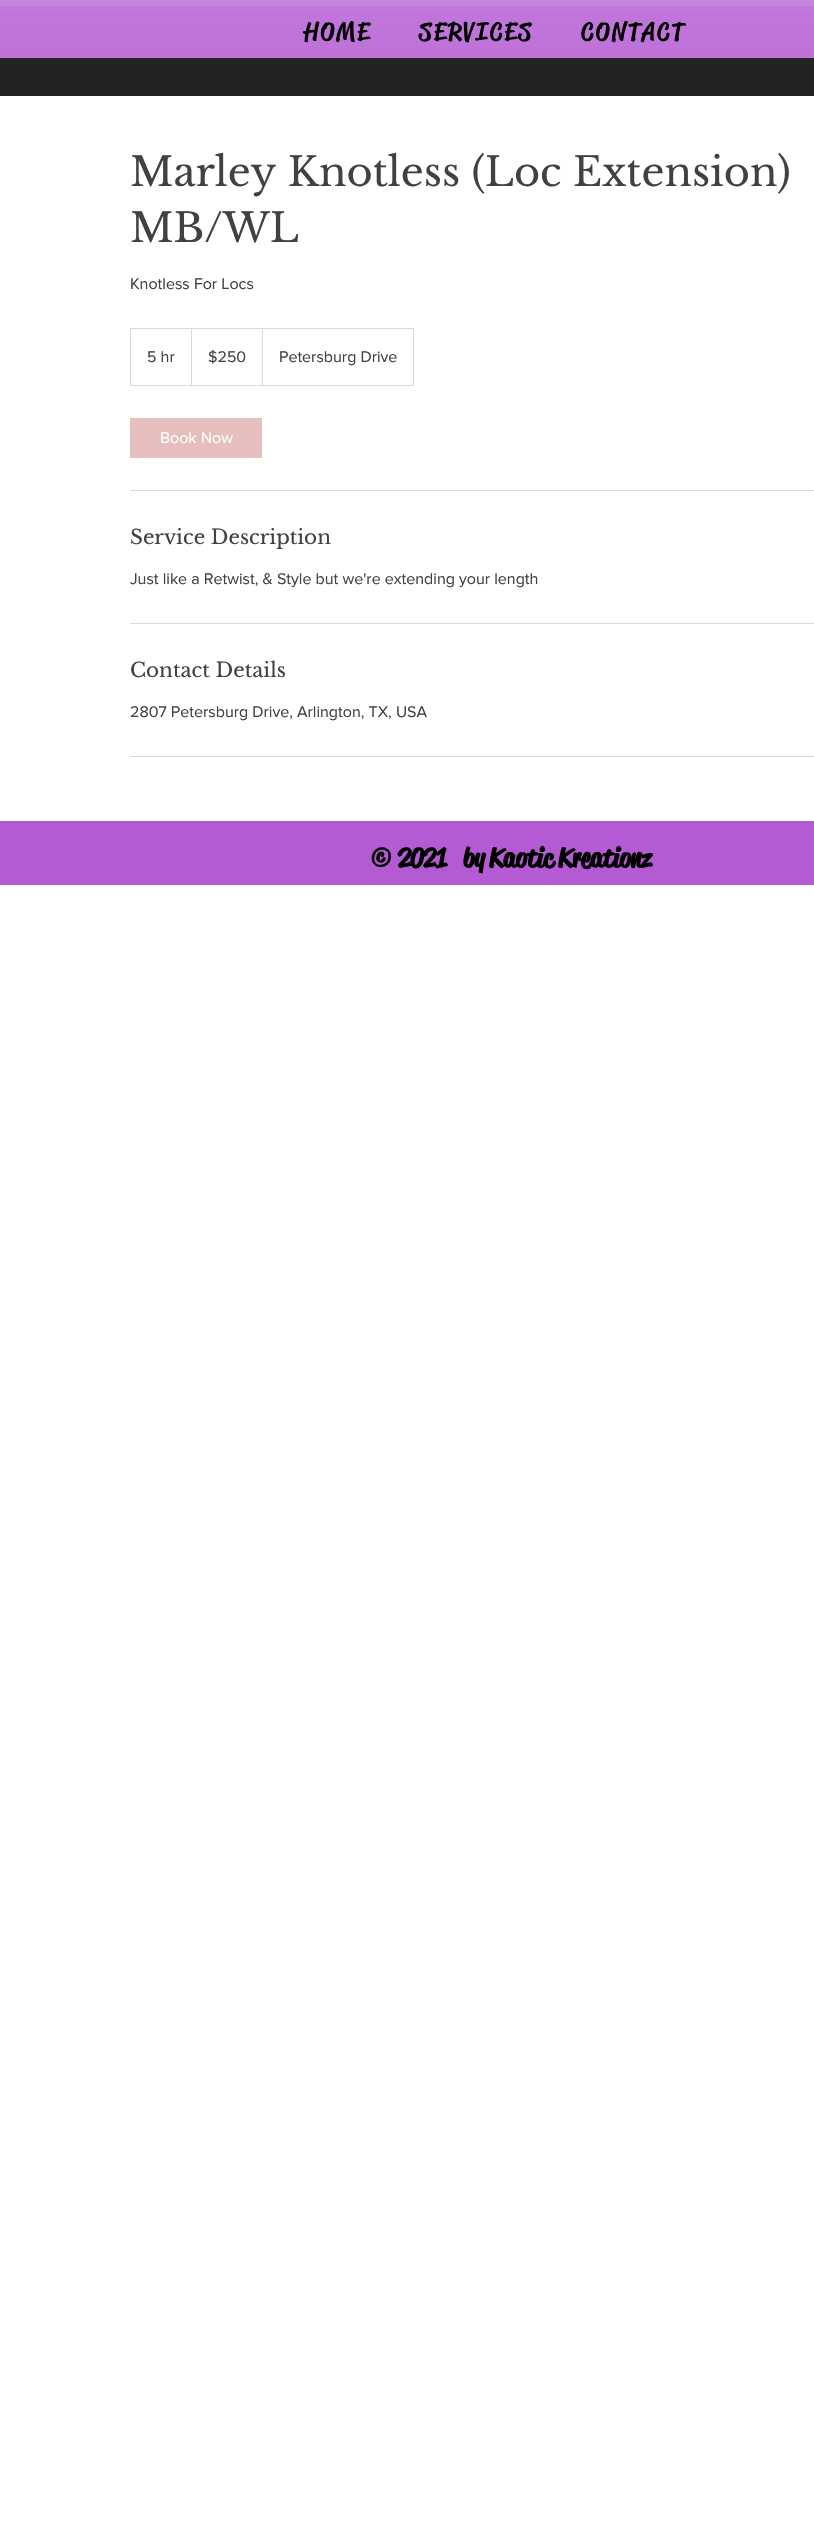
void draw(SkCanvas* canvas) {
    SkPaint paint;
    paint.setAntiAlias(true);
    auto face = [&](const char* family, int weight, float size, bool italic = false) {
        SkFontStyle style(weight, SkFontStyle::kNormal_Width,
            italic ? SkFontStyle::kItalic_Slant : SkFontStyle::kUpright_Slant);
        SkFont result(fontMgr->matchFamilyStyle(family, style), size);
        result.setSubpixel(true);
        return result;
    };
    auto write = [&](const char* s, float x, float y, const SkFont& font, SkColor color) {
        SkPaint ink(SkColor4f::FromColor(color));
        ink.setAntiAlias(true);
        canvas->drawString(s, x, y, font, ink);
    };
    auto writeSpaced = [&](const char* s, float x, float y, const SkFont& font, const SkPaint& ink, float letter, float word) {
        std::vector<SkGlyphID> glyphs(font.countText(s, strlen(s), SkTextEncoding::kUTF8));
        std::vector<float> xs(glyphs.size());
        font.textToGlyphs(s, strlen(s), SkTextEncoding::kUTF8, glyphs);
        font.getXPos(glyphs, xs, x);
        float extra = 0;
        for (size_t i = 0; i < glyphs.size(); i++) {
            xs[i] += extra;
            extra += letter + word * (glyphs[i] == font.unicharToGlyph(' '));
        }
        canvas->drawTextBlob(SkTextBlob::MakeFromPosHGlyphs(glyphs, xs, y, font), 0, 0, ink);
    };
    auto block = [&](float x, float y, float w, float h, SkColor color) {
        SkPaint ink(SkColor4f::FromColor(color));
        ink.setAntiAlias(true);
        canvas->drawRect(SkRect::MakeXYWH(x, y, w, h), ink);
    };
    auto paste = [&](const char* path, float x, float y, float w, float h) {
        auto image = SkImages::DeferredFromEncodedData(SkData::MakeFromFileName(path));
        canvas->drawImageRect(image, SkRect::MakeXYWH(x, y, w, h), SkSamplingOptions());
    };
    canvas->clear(SK_ColorWHITE);
    block(0, 0, 814, 58, SkColorSetRGB(180, 90, 211));
    paste("pic1.png", 0, 0, 814, 58);
    block(0, 6, 814, 52, SkColorSetARGB(82, 180, 90, 211));
    auto kFont1 = face("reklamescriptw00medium", 500, 25);
    paint.setColor(SK_ColorBLACK);
    writeSpaced("HOME", 304, 40, kFont1, paint, 2.5f, 0);
    writeSpaced("SERVICES", 419, 40, kFont1, paint, 2.5f, 0);
    writeSpaced("CONTACT", 581, 40, kFont1, paint, 2.5f, 0);
    block(0, 58, 814, 38, SkColorSetRGB(35, 35, 35));
    auto kFont2 = face("Libre Baskerville", 400, 40);
    write("Marley Knotless (Loc Extension)", 130, 186, kFont2, SkColorSetRGB(65, 65, 65));
    write("MB/WL", 130, 242, kFont2, SkColorSetRGB(65, 65, 65));
    auto kFont3 = face("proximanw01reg", 400, 16);
    write("Knotless For Locs", 130, 289, kFont3, SkColorSetRGB(65, 65, 65));
    paint.setStyle(SkPaint::kStroke_Style);
    paint.setStrokeWidth(1);
    paint.setColor(SkColorSetRGB(217, 217, 217));
    canvas->drawRect(SkRect::MakeXYWH(130.5f, 328.5f, 283, 57), paint);
    write("5 hr", 147, 362, kFont3, SkColorSetRGB(65, 65, 65));
    paint.setStyle(SkPaint::kFill_Style);
    canvas->drawPath(SkPathBuilder().moveTo(191, 385).lineTo(191, 328).lineTo(192, 329).lineTo(192, 385).close().detach(), paint);
    write("$250", 208, 362, kFont3, SkColorSetRGB(65, 65, 65));
    canvas->drawPath(SkPathBuilder().moveTo(262, 385).lineTo(262, 328).lineTo(263, 329).lineTo(263, 385).close().detach(), paint);
    write("Petersburg Drive", 279, 362, kFont3, SkColorSetRGB(65, 65, 65));
    block(130, 418, 132, 40, SkColorSetRGB(230, 190, 190));
    write("Book Now", 160, 443, kFont3, SK_ColorWHITE);
    block(130, 490, 684, 1, SkColorSetRGB(217, 217, 217));
    auto kFont4 = face("Libre Baskerville", 400, 20);
    write("Service Description", 130, 544, kFont4, SkColorSetRGB(65, 65, 65));
    write("Just like a Retwist, & Style but we're extending your length", 130, 584, kFont3, SkColorSetRGB(65, 65, 65));
    block(130, 623, 684, 1, SkColorSetRGB(217, 217, 217));
    write("Contact Details", 130, 677, kFont4, SkColorSetRGB(65, 65, 65));
    write("2807 Petersburg Drive, Arlington, TX, USA", 130, 717, kFont3, SkColorSetRGB(65, 65, 65));
    block(130, 756, 684, 1, SkColorSetRGB(217, 217, 217));
    block(0, 821, 814, 64, SkColorSetRGB(180, 90, 211));
    auto kFont5 = face("reklamescriptw00medium", 700, 27);
    write("© 2021", 370, 867, kFont5, SK_ColorBLACK);
    write("by", 463, 867, kFont5, SK_ColorBLACK);
    write("Kaotic", 489, 867, kFont5, SK_ColorBLACK);
    write("Kreationz", 558, 867, kFont5, SK_ColorBLACK);
}
